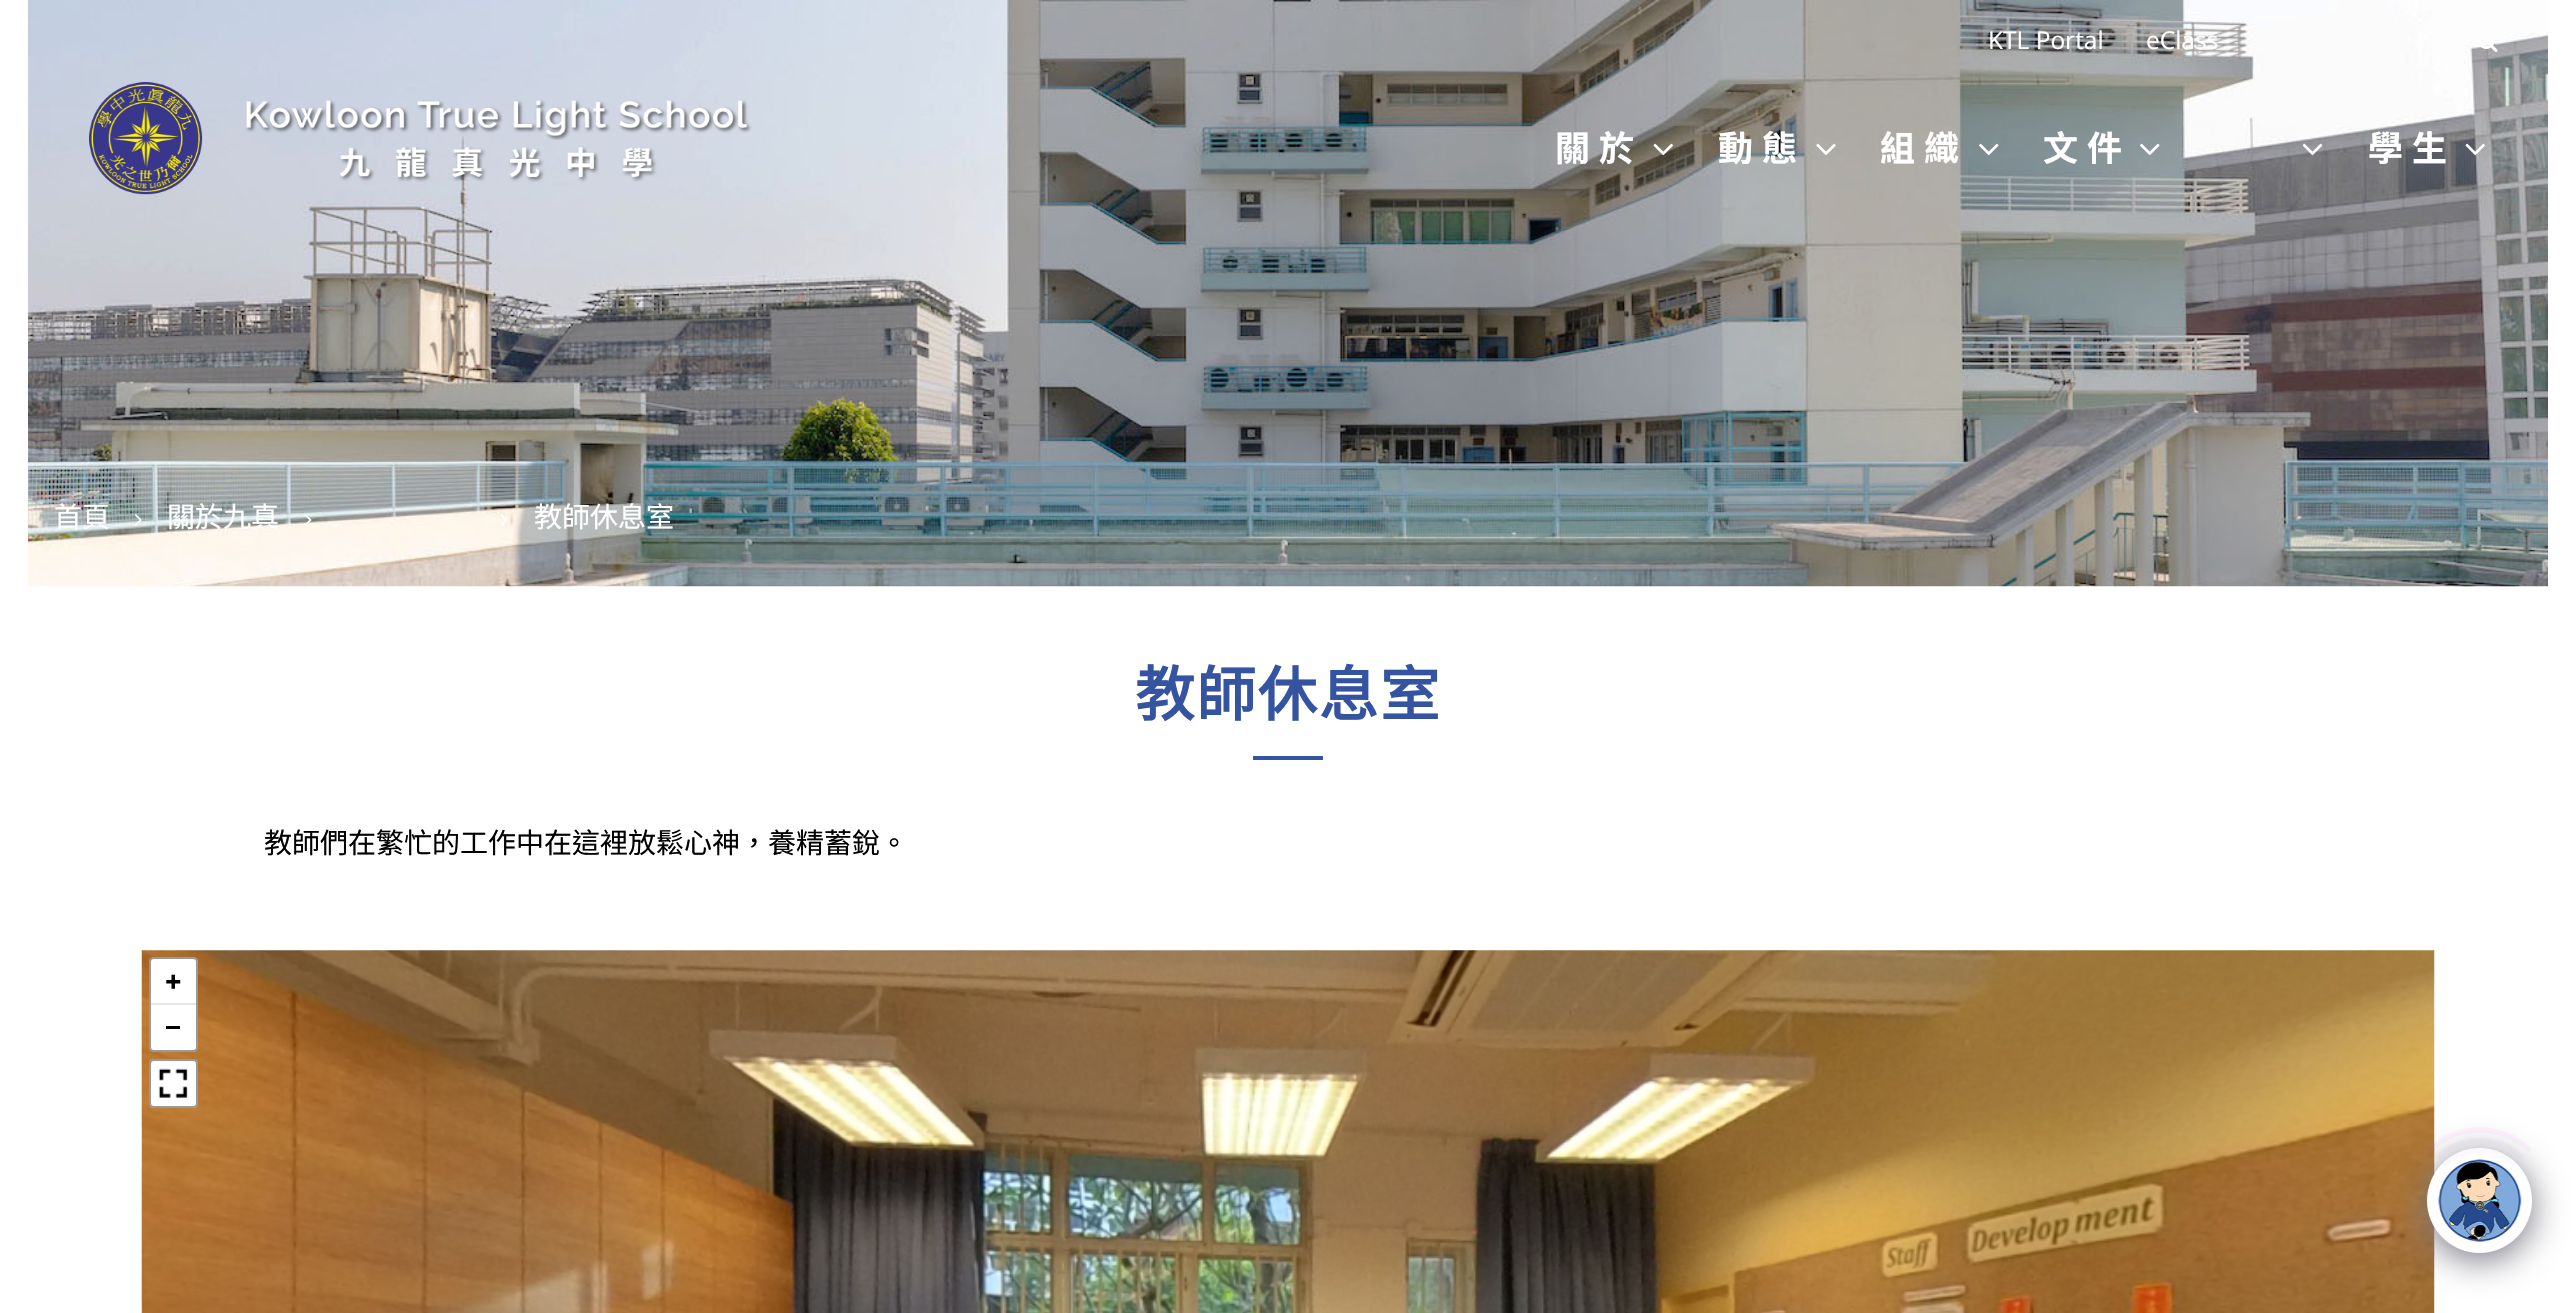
void draw(SkCanvas* canvas) {
    SkPaint paint;
    paint.setAntiAlias(true);
    auto face = [&](const char* family, int weight, float size, bool italic = false) {
        SkFontStyle style(weight, SkFontStyle::kNormal_Width,
            italic ? SkFontStyle::kItalic_Slant : SkFontStyle::kUpright_Slant);
        SkFont result(fontMgr->matchFamilyStyle(family, style), size);
        result.setSubpixel(true);
        return result;
    };
    auto write = [&](const char* s, float x, float y, const SkFont& font, SkColor color) {
        SkPaint ink(SkColor4f::FromColor(color));
        ink.setAntiAlias(true);
        canvas->drawString(s, x, y, font, ink);
    };
    auto writeSpaced = [&](const char* s, float x, float y, const SkFont& font, const SkPaint& ink, float letter, float word) {
        std::vector<SkGlyphID> glyphs(font.countText(s, strlen(s), SkTextEncoding::kUTF8));
        std::vector<float> xs(glyphs.size());
        font.textToGlyphs(s, strlen(s), SkTextEncoding::kUTF8, glyphs);
        font.getXPos(glyphs, xs, x);
        float extra = 0;
        for (size_t i = 0; i < glyphs.size(); i++) {
            xs[i] += extra;
            extra += letter + word * (glyphs[i] == font.unicharToGlyph(' '));
        }
        canvas->drawTextBlob(SkTextBlob::MakeFromPosHGlyphs(glyphs, xs, y, font), 0, 0, ink);
    };
    auto block = [&](float x, float y, float w, float h, SkColor color) {
        SkPaint ink(SkColor4f::FromColor(color));
        ink.setAntiAlias(true);
        canvas->drawRect(SkRect::MakeXYWH(x, y, w, h), ink);
    };
    auto card = [&](float x, float y, float w, float h, float radius, SkColor color) {
        SkPaint ink(SkColor4f::FromColor(color));
        ink.setAntiAlias(true);
        canvas->drawRoundRect(SkRect::MakeXYWH(x, y, w, h), radius, radius, ink);
    };
    auto paste = [&](const char* path, float x, float y, float w, float h) {
        auto image = SkImages::DeferredFromEncodedData(SkData::MakeFromFileName(path));
        canvas->drawImageRect(image, SkRect::MakeXYWH(x, y, w, h), SkSamplingOptions());
    };
    canvas->clear(SK_ColorWHITE);
    paste("pic9.png", 28, 0, 2520, 587);
    auto kFont1 = face("Open Sans", 400, 24.5f);
    write("KTL Portal", 1988, 49, kFont1, SK_ColorWHITE);
    write("eClass", 2146, 49, kFont1, SK_ColorWHITE);
    paste("pic1.png", 2480, 42, 18, 10);
    paste("pic2.png", 89, 82, 663, 113);
    auto kFont2 = face("Noto Sans HK", 700, 35);
    paint.setColor(SK_ColorWHITE);
    writeSpaced("關於", 1555, 161, kFont2, paint, 9, 0);
    paste("pic3.png", 1653, 143, 20, 13);
    writeSpaced("動態", 1718, 161, kFont2, paint, 9, 0);
    paste("pic4.png", 1816, 143, 20, 12);
    writeSpaced("組織", 1880, 161, kFont2, paint, 9, 0);
    paste("pic5.png", 1979, 143, 20, 13);
    writeSpaced("文件", 2043, 161, kFont2, paint, 9, 0);
    paste("pic6.png", 2140, 143, 20, 12);
    paste("pic7.png", 2302, 143, 21, 13);
    writeSpaced("學生", 2368, 161, kFont2, paint, 9, 0);
    paste("pic8.png", 2465, 143, 20, 13);
    auto kFont3 = face("Noto Sans CJK HK", 400, 28);
    write("首頁", 54, 527, kFont3, SK_ColorWHITE);
    paste("pic10.png", 135, 514, 7, 12);
    write("關於九真", 167, 527, kFont3, SK_ColorWHITE);
    paste("pic11.png", 304, 514, 8, 12);
    paste("pic12.png", 501, 514, 7, 12);
    write("教師休息室", 534, 527, kFont3, SK_ColorWHITE);
    auto kFont4 = face("Noto Sans CJK HK", 700, 59.5f);
    paint.setColor(SkColorSetRGB(52, 83, 161));
    writeSpaced("教師休息室", 1135, 716, kFont4, paint, 1.75f, 0);
    block(1253, 756, 70, 4, SkColorSetRGB(52, 83, 161));
    write("教師們在繁忙的工作中在這裡放鬆心神，養精蓄銳。", 264, 853, kFont3, SK_ColorBLACK);
    paste("pic13.png", 141, 950, 2294, 352);
    paste("pic14.png", 141, 950, 2294, 363);
    card(149, 957, 49, 95, 5, SK_ColorWHITE);
    paint.setStyle(SkPaint::kStroke_Style);
    paint.setStrokeWidth(2);
    paint.setColor(SkColorSetARGB(102, 0, 0, 0));
    canvas->drawRoundRect(SkRect::MakeXYWH(150, 958, 47, 93), 4, 4, paint);
    paste("pic15.png", 166, 974, 15, 15);
    block(166, 1026, 14, 3, SK_ColorBLACK);
    block(151, 1003, 45, 2, SkColorSetRGB(230, 230, 230));
    card(149, 1059, 49, 49, 5, SK_ColorWHITE);
    paste("pic16.png", 158, 1068, 30, 30);
    canvas->drawRoundRect(SkRect::MakeXYWH(150, 1060, 47, 47), 4, 4, paint);
    paint.setStyle(SkPaint::kFill_Style);
    paint.setColor(SkColorSetRGB(118, 117, 128));
    paint.setMaskFilter(SkMaskFilter::MakeBlur(kNormal_SkBlurStyle, 17.5f));
    canvas->drawRoundRect(SkRect::MakeXYWH(2427, 1155, 105, 105), 52.5f, 52.5f, paint);
    paint.setMaskFilter(nullptr);
    paint.setColor(SK_ColorWHITE);
    canvas->drawCircle(2479.5f, 1200.5f, 52.5f, paint);
    paste("pic17.png", 2438, 1159, 84, 83);
    paint.setStyle(SkPaint::kStroke_Style);
    paint.setStrokeWidth(5.2f);
    paint.setColor(SkColorSetARGB(10, 147, 112, 219));
    canvas->drawPath(SkPathBuilder().moveTo(2444.5f, 1165).cubicTo(2463.5f, 1146, 2496, 1146, 2515, 1165).detach(), paint);
    paint.setColor(SkColorSetARGB(10, 186, 85, 211));
    canvas->drawPath(SkPathBuilder().moveTo(2437, 1158).cubicTo(2460.5f, 1134.5f, 2499, 1134.5f, 2522.5f, 1158).detach(), paint);
    paint.setColor(SkColorSetARGB(10, 255, 0, 255));
    canvas->drawPath(SkPathBuilder().moveTo(2429.5f, 1150.5f).cubicTo(2457, 1123, 2502.5f, 1123, 2530, 1150.5f).detach(), paint);
}
